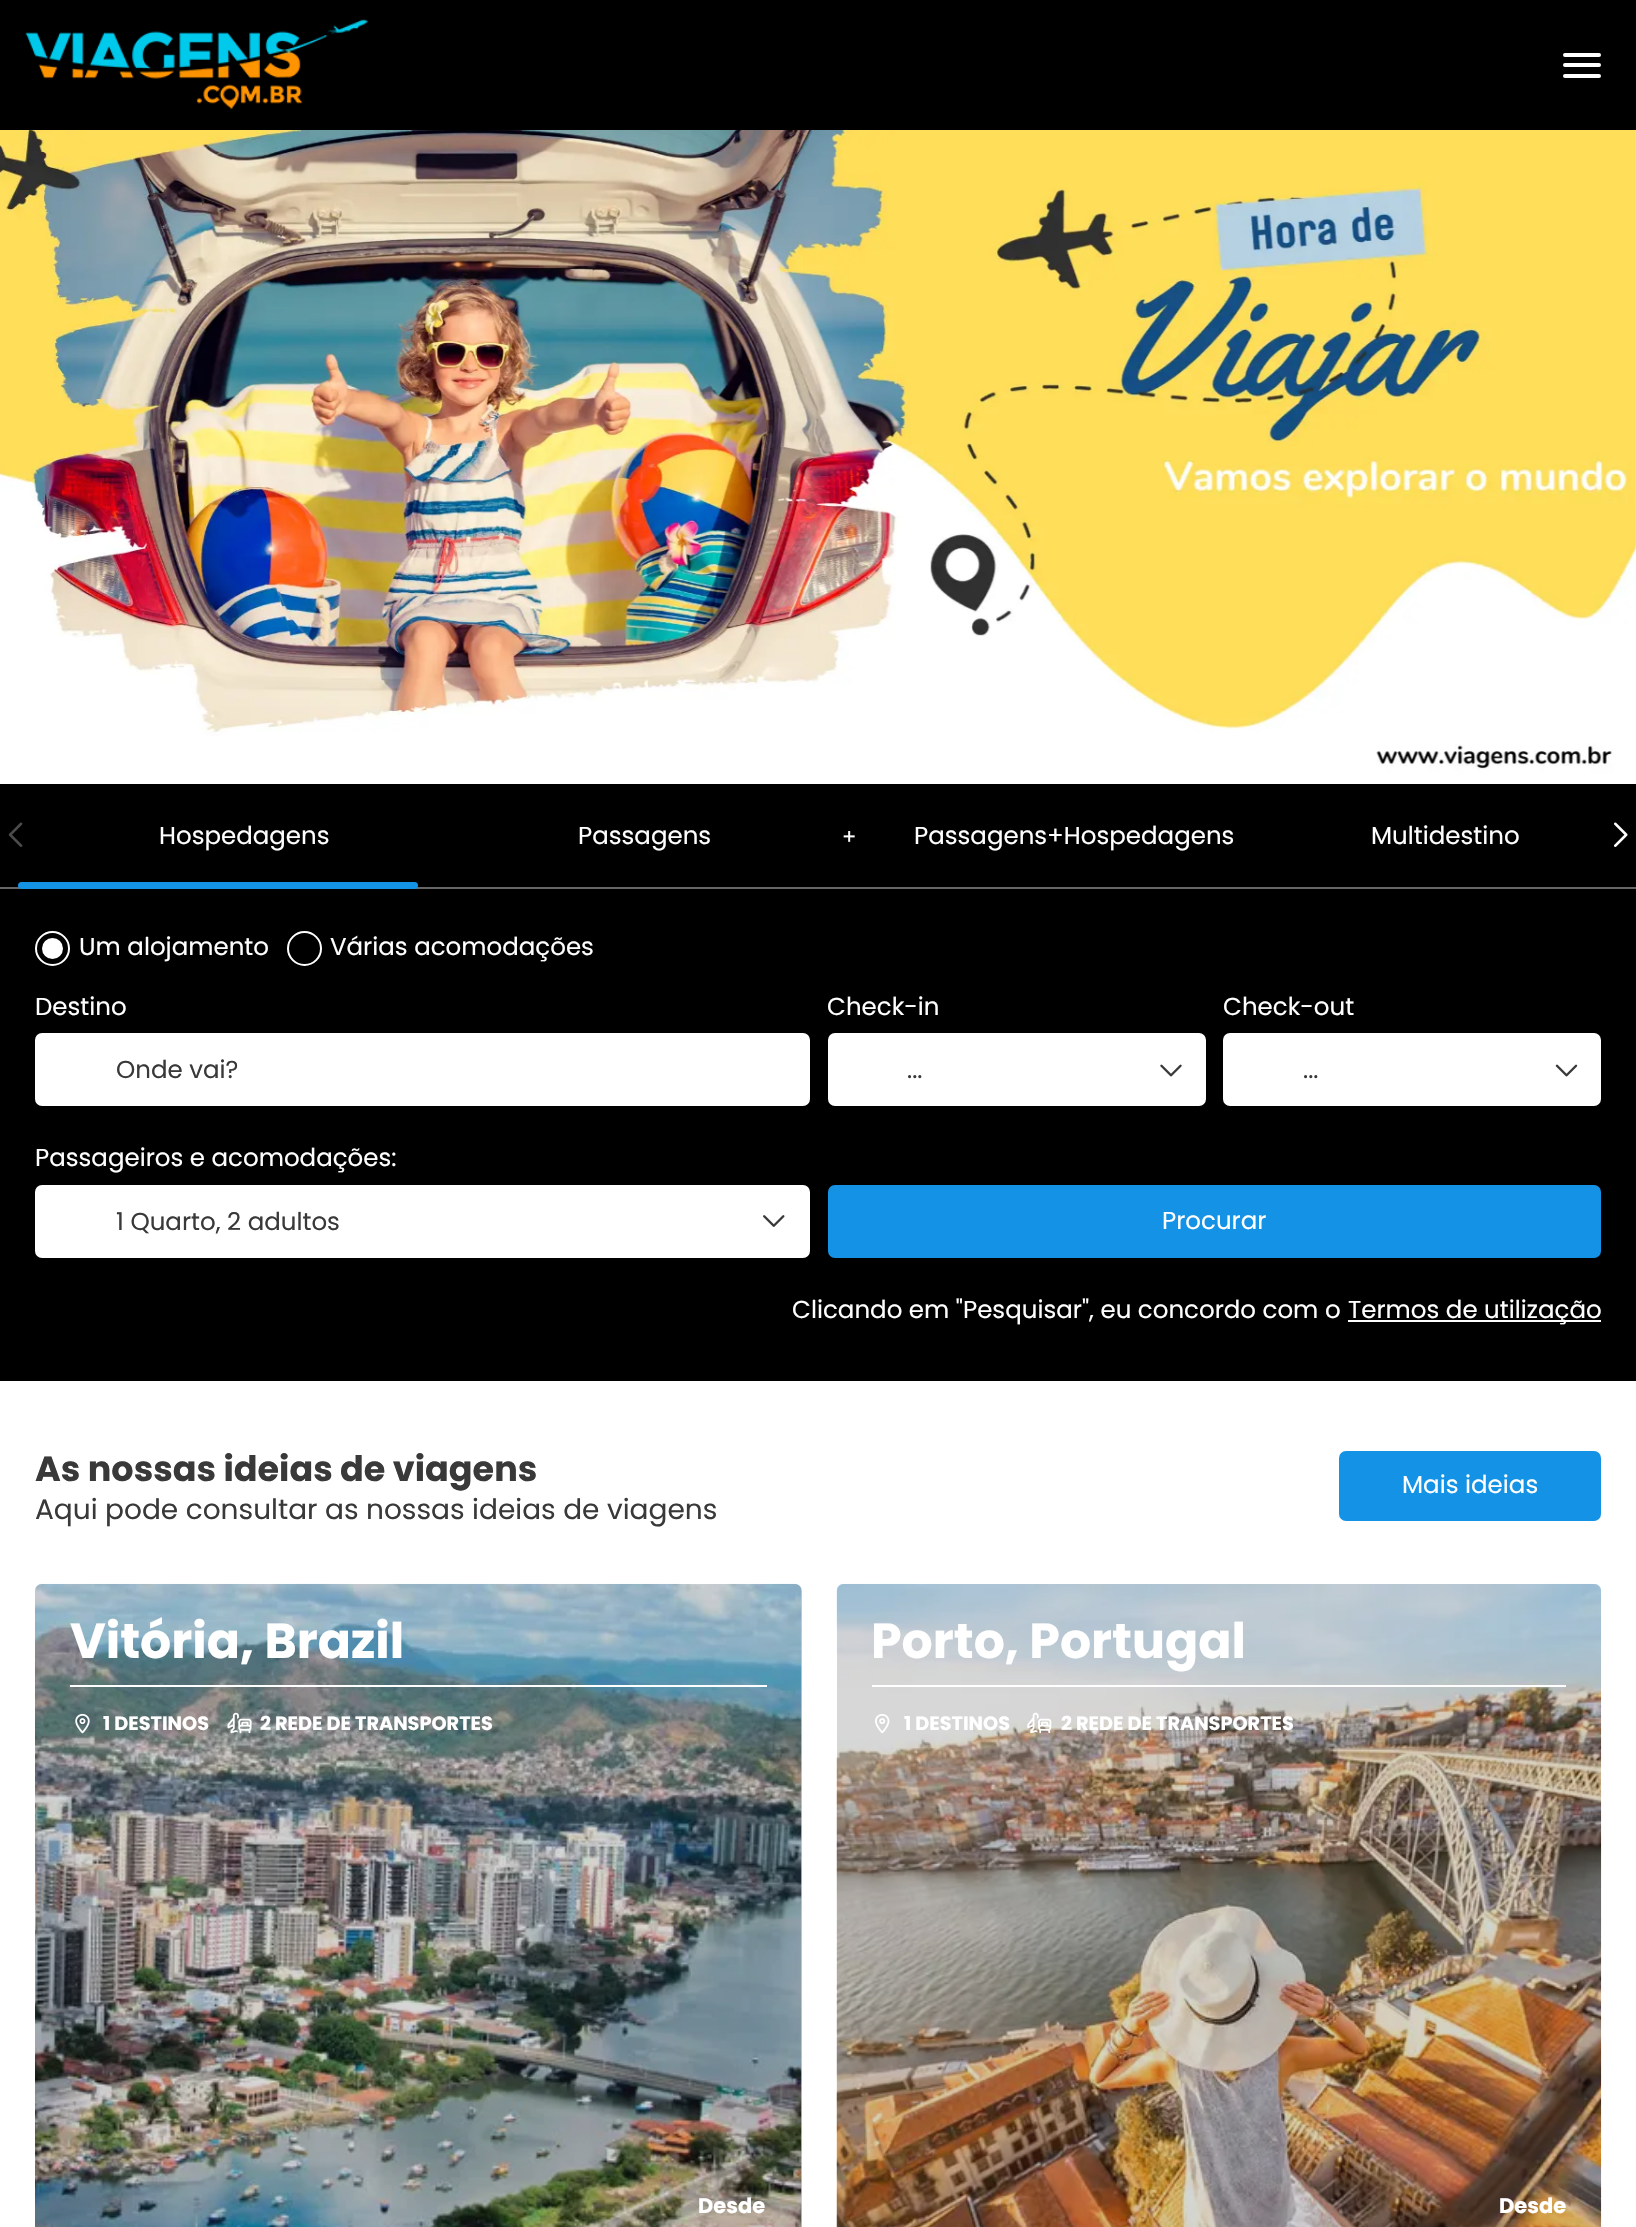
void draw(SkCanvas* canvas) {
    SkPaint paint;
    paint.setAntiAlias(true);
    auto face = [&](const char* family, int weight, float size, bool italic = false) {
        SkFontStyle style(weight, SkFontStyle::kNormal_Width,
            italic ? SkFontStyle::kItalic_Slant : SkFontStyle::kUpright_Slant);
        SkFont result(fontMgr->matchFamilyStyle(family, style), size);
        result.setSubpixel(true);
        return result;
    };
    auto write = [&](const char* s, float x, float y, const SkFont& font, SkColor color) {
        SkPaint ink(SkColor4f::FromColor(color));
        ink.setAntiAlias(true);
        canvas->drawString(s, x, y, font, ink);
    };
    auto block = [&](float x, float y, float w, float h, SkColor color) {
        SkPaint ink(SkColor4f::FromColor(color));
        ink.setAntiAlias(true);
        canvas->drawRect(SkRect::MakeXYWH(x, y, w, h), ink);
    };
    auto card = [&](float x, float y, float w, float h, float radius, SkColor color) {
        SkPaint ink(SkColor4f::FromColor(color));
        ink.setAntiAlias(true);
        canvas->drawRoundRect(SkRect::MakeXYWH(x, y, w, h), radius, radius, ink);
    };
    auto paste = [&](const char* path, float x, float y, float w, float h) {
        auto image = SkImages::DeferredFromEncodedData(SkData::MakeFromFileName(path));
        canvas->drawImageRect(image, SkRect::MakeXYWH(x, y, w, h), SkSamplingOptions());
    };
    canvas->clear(SK_ColorWHITE);
    block(0, 0, 1636, 130, SK_ColorBLACK);
    paste("pic1.png", 25, 19, 343, 91);
    card(1563, 53, 38, 4, 2, SK_ColorWHITE);
    card(1563, 63, 38, 4, 2, SK_ColorWHITE);
    card(1563, 74, 38, 4, 2, SK_ColorWHITE);
    paste("pic2.png", 0, 130, 1636, 654);
    block(0, 784, 1636, 597, SK_ColorBLACK);
    paste("pic3.png", 8, 822, 15, 25);
    block(0, 887, 1636, 2, SkColorSetRGB(102, 102, 102));
    auto kFont1 = face("Poppins", 400, 24.5f);
    write("Hospedagens", 159, 844, kFont1, SK_ColorWHITE);
    card(18, 882, 400, 7, 3.5f, SkColorSetRGB(20, 146, 230));
    write("Passagens", 578, 844, kFont1, SK_ColorWHITE);
    auto kFont2 = face("Poppins", 400, 21);
    write("+", 842, 844, kFont2, SK_ColorWHITE);
    write("Passagens+Hospedagens", 914, 844, kFont1, SK_ColorWHITE);
    write("Multidestino", 1371, 844, kFont1, SK_ColorWHITE);
    paste("pic4.png", 1614, 822, 14, 25);
    paint.setStyle(SkPaint::kStroke_Style);
    paint.setStrokeWidth(2);
    paint.setColor(SK_ColorWHITE);
    canvas->drawCircle(52.5f, 948.5f, 16.5f, paint);
    paint.setStyle(SkPaint::kFill_Style);
    canvas->drawCircle(52.5f, 948.5f, 8, paint);
    paint.setStyle(SkPaint::kStroke_Style);
    paint.setStrokeWidth(5);
    canvas->drawCircle(52.5f, 948.5f, 8, paint);
    write("Um alojamento", 79, 955, kFont1, SK_ColorWHITE);
    paint.setStrokeWidth(2);
    canvas->drawCircle(304.5f, 948.5f, 16.5f, paint);
    write("Várias acomodações", 330, 955, kFont1, SK_ColorWHITE);
    write("Destino", 35, 1015, kFont1, SK_ColorWHITE);
    paint.setStyle(SkPaint::kFill_Style);
    canvas->drawRoundRect(SkRect::MakeXYWH(36, 1034, 773, 71), 6, 6, paint);
    paint.setStyle(SkPaint::kStroke_Style);
    canvas->drawRoundRect(SkRect::MakeXYWH(36, 1034, 773, 71), 6, 6, paint);
    write("Onde vai?", 116, 1078, kFont1, SkColorSetRGB(57, 57, 57));
    write("Check-in", 827, 1015, kFont1, SK_ColorWHITE);
    paint.setStyle(SkPaint::kFill_Style);
    canvas->drawRoundRect(SkRect::MakeXYWH(829, 1034, 376, 71), 6, 6, paint);
    paint.setStyle(SkPaint::kStroke_Style);
    canvas->drawRoundRect(SkRect::MakeXYWH(829, 1034, 376, 71), 6, 6, paint);
    write("...", 907, 1078, kFont1, SkColorSetRGB(57, 57, 57));
    paste("pic5.png", 1160, 1064, 22, 13);
    write("Check-out", 1223, 1015, kFont1, SK_ColorWHITE);
    paint.setStyle(SkPaint::kFill_Style);
    canvas->drawRoundRect(SkRect::MakeXYWH(1224, 1034, 376, 71), 6, 6, paint);
    paint.setStyle(SkPaint::kStroke_Style);
    canvas->drawRoundRect(SkRect::MakeXYWH(1224, 1034, 376, 71), 6, 6, paint);
    write("...", 1303, 1078, kFont1, SkColorSetRGB(57, 57, 57));
    paste("pic6.png", 1555, 1064, 23, 13);
    write("Passageiros e acomodações:", 35, 1166, kFont1, SK_ColorWHITE);
    paint.setStyle(SkPaint::kFill_Style);
    canvas->drawRoundRect(SkRect::MakeXYWH(36, 1186, 773, 71), 6, 6, paint);
    paint.setStyle(SkPaint::kStroke_Style);
    canvas->drawRoundRect(SkRect::MakeXYWH(36, 1186, 773, 71), 6, 6, paint);
    write("1 Quarto, 2 adultos", 116, 1230, kFont1, SkColorSetRGB(57, 57, 57));
    paste("pic7.png", 763, 1215, 22, 12);
    card(828, 1185, 773, 73, 7, SkColorSetRGB(20, 146, 230));
    write("Procurar", 1162, 1229, kFont1, SK_ColorWHITE);
    write("Clicando em \"Pesquisar\", eu concordo com o", 792, 1318, kFont1, SK_ColorWHITE);
    block(1348, 1320, 253, 2, SK_ColorWHITE);
    write("Termos de utilização", 1348, 1318, kFont1, SK_ColorWHITE);
    auto kFont3 = face("Poppins", 700, 35);
    write("As nossas ideias de viagens", 35, 1481, kFont3, SkColorSetRGB(57, 57, 57));
    auto kFont4 = face("Poppins", 400, 28);
    write("Aqui pode consultar as nossas ideias de viagens", 35, 1519, kFont4, SkColorSetRGB(57, 57, 57));
    card(1339, 1451, 262, 70, 7, SkColorSetRGB(20, 146, 230));
    write("Mais ideias", 1402, 1493, kFont1, SK_ColorWHITE);
    card(35, 1584, 767, 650, 7, SkColorSetRGB(247, 247, 247));
    paste("pic8.png", 35, 1583, 767, 644);
    card(35, 1584, 767, 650, 7, SkColorSetARGB(51, 57, 57, 57));
    auto kFont5 = face("Poppins", 700, 49);
    write("Vitória, Brazil", 70, 1658, kFont5, SK_ColorWHITE);
    block(70, 1685, 697, 2, SK_ColorWHITE);
    paste("pic9.png", 75, 1713, 15, 21);
    auto kFont6 = face("Poppins", 700, 19.25f);
    write("1 DESTINOS", 103, 1730, kFont6, SK_ColorWHITE);
    paste("pic10.png", 227, 1712, 25, 22);
    write("2 REDE DE TRANSPORTES", 260, 1730, kFont6, SK_ColorWHITE);
    auto kFont7 = face("Poppins", 700, 21);
    write("Desde", 698, 2213, kFont7, SK_ColorWHITE);
    paste("pic11.png", 836, 1583, 766, 644);
    card(837, 1584, 764, 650, 7, SkColorSetARGB(51, 57, 57, 57));
    write("Porto, Portugal", 871, 1658, kFont5, SK_ColorWHITE);
    block(872, 1685, 694, 2, SK_ColorWHITE);
    paste("pic12.png", 875, 1714, 15, 20);
    write("1 DESTINOS", 904, 1730, kFont6, SK_ColorWHITE);
    paste("pic13.png", 1027, 1712, 25, 22);
    write("2 REDE DE TRANSPORTES", 1061, 1730, kFont6, SK_ColorWHITE);
    write("Desde", 1499, 2213, kFont7, SK_ColorWHITE);
}
